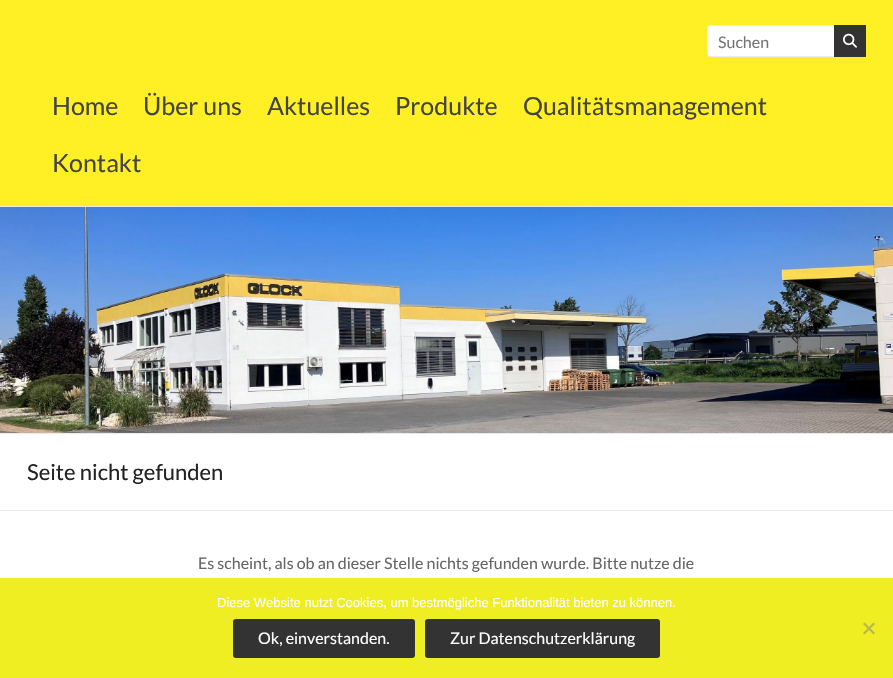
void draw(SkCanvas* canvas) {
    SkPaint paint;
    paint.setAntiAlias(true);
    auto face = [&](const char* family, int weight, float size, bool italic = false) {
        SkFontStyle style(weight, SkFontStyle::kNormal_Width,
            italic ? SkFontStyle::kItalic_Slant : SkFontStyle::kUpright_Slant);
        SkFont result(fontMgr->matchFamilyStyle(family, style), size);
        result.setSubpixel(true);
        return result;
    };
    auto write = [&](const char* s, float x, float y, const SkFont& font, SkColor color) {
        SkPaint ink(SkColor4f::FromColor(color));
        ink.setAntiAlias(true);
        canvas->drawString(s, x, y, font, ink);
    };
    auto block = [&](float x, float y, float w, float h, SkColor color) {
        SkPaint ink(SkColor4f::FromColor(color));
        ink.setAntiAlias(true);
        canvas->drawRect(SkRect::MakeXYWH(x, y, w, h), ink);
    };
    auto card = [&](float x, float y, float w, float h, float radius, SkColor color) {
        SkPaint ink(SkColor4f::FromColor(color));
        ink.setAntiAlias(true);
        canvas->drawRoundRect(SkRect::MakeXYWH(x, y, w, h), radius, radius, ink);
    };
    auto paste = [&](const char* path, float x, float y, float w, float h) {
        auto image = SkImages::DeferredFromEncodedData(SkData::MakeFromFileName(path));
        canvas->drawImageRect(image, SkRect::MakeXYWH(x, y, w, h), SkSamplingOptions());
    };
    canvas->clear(SK_ColorWHITE);
    block(0, 0, 893, 206, SkColorSetRGB(255, 240, 38));
    block(0, 206, 893, 1, SkColorSetRGB(234, 234, 234));
    paint.setColor(SK_ColorWHITE);
    canvas->drawRoundRect(SkRect::MakeXYWH(707.5f, 25.5f, 129, 31), 2.5f, 2.5f, paint);
    paint.setStyle(SkPaint::kStroke_Style);
    paint.setStrokeWidth(1);
    paint.setColor(SkColorSetRGB(234, 234, 234));
    canvas->drawRoundRect(SkRect::MakeXYWH(707.5f, 25.5f, 129, 31), 2.5f, 2.5f, paint);
    auto kFont1 = face("Lato", 400, 16);
    write("Suchen", 718, 48, kFont1, SkColorSetRGB(117, 117, 117));
    block(834, 25, 32, 32, SkColorSetRGB(51, 51, 51));
    paste("pic1.png", 843, 33, 14, 15);
    auto kFont2 = face("Lato", 400, 25);
    write("Home", 52, 115, kFont2, SkColorSetRGB(68, 68, 68));
    write("Über uns", 143, 115, kFont2, SkColorSetRGB(68, 68, 68));
    write("Aktuelles", 267, 115, kFont2, SkColorSetRGB(68, 68, 68));
    write("Produkte", 395, 115, kFont2, SkColorSetRGB(68, 68, 68));
    write("Qualitätsmanagement", 523, 115, kFont2, SkColorSetRGB(68, 68, 68));
    write("Kontakt", 52, 172, kFont2, SkColorSetRGB(68, 68, 68));
    paste("pic2.png", 0, 207, 893, 226);
    block(0, 433, 893, 1, SkColorSetRGB(234, 234, 234));
    block(0, 510, 893, 1, SkColorSetRGB(234, 234, 234));
    auto kFont3 = face("Lato", 400, 22);
    write("Seite nicht gefunden", 27, 480, kFont3, SkColorSetRGB(34, 34, 34));
    write("Es scheint, als ob an dieser Stelle nichts gefunden wurde. Bitte nutze die", 198, 569, kFont1, SkColorSetRGB(102, 102, 102));
    block(0, 578, 893, 100, SkColorSetRGB(238, 238, 34));
    auto kFont4 = face("Liberation Sans", 400, 13);
    write("Diese Website nutzt Cookies, um bestmögliche Funktionalität bieten zu können.", 217, 607, kFont4, SK_ColorWHITE);
    paint.setStyle(SkPaint::kFill_Style);
    paint.setColor(SkColorSetRGB(183, 183, 81));
    canvas->drawPath(SkPathBuilder().moveTo(873.5f, 622.5f).lineTo(875, 624).lineTo(864.5f, 634.5f).lineTo(863, 633).close().detach(), paint);
    canvas->drawPath(SkPathBuilder().moveTo(863, 624).lineTo(864.5f, 622.5f).lineTo(875, 633).lineTo(873.5f, 634.5f).close().detach(), paint);
    card(233, 619, 182, 39, 3, SkColorSetRGB(51, 51, 51));
    write("Ok, einverstanden.", 258, 644, kFont1, SK_ColorWHITE);
    card(425, 619, 235, 39, 3, SkColorSetRGB(51, 51, 51));
    write("Zur Datenschutzerklärung", 450, 644, kFont1, SK_ColorWHITE);
}
